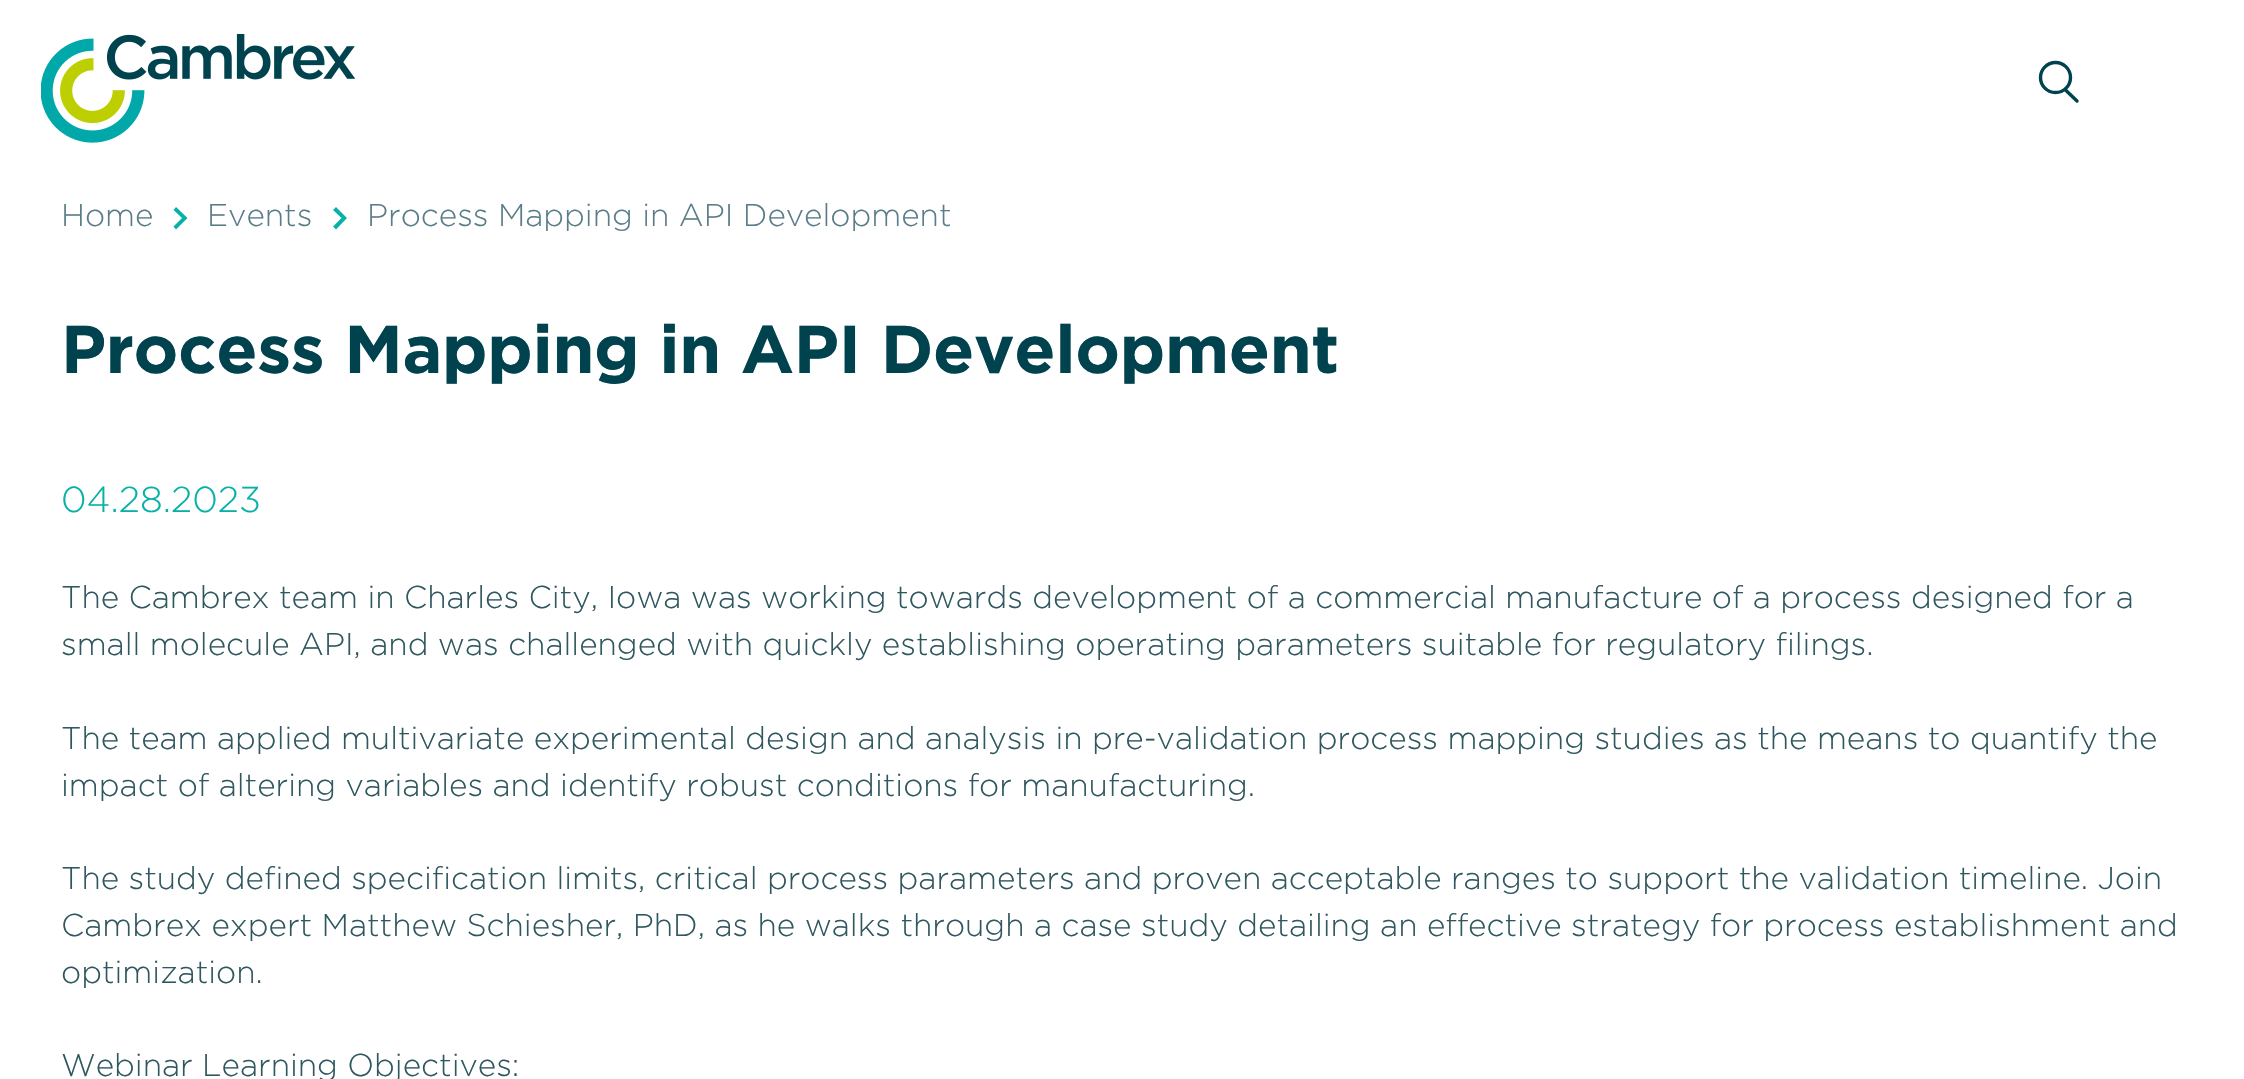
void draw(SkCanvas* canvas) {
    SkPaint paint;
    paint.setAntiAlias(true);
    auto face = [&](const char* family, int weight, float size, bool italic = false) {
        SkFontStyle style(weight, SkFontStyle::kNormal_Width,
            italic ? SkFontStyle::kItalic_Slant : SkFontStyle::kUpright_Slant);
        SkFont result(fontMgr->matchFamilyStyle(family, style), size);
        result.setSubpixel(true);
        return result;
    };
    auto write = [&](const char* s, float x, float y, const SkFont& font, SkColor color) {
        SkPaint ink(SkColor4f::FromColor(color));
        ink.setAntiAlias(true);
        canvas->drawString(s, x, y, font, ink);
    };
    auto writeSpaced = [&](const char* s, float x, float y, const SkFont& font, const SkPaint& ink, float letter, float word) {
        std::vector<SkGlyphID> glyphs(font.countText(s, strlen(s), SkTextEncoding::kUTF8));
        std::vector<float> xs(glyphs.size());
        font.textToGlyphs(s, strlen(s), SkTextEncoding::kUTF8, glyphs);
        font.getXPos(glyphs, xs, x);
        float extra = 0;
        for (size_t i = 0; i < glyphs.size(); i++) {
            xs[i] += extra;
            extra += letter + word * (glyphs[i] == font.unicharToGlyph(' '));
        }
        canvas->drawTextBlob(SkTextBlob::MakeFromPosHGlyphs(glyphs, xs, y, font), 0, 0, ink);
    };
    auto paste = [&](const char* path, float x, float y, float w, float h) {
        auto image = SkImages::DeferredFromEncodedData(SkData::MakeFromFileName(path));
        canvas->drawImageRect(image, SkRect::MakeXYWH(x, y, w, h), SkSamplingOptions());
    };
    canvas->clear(SK_ColorWHITE);
    paste("pic1.png", 41, 34, 315, 109);
    paint.setStyle(SkPaint::kStroke_Style);
    paint.setStrokeWidth(3.4f);
    paint.setColor(SkColorSetRGB(0, 67, 79));
    canvas->drawCircle(2055.5f, 77.5f, 15, paint);
    paint.setStrokeCap(SkPaint::kRound_Cap);
    canvas->drawPath(SkPathBuilder().moveTo(2065.5f, 90).lineTo(2077, 101).detach(), paint);
    auto kFont1 = face("Gotham", 300, 31.5f);
    write("Home", 61, 226, kFont1, SkColorSetRGB(89, 124, 136));
    paint.setStyle(SkPaint::kFill_Style);
    paint.setColor(SkColorSetRGB(8, 177, 168));
    canvas->drawPath(SkPathBuilder().moveTo(173.5f, 210).lineTo(176, 207).lineTo(187.5f, 218).lineTo(176, 229.5f).lineTo(173.5f, 226.5f).lineTo(182, 218).close().detach(), paint);
    write("Events", 207, 226, kFont1, SkColorSetRGB(89, 124, 136));
    canvas->drawPath(SkPathBuilder().moveTo(333, 210).lineTo(336, 207).lineTo(347, 218).lineTo(336, 229.5f).lineTo(333, 226.5f).lineTo(341.5f, 218).close().detach(), paint);
    write("Process Mapping in API Development", 367, 226, kFont1, SkColorSetRGB(89, 124, 136));
    auto kFont2 = face("Gotham", 700, 67.5f);
    paint.setColor(SkColorSetRGB(0, 67, 79));
    writeSpaced("Process Mapping in API Development", 61, 373, kFont2, paint, -0.35f, 0);
    auto kFont3 = face("Gotham", 300, 36);
    write("04.28.2023", 61, 512, kFont3, SkColorSetRGB(8, 177, 168));
    write("The Cambrex team in Charles City, Iowa was working towards development of a commercial manufacture of a process designed for a", 61, 608, kFont1, SkColorSetRGB(47, 87, 95));
    write("small molecule API, and was challenged with quickly establishing operating parameters suitable for regulatory filings.", 61, 655, kFont1, SkColorSetRGB(47, 87, 95));
    write("The team applied multivariate experimental design and analysis in pre-validation process mapping studies as the means to quantify the", 61, 749, kFont1, SkColorSetRGB(47, 87, 95));
    write("impact of altering variables and identify robust conditions for manufacturing.", 61, 796, kFont1, SkColorSetRGB(47, 87, 95));
    write("The study defined specification limits, critical process parameters and proven acceptable ranges to support the validation timeline. Join", 61, 889, kFont1, SkColorSetRGB(47, 87, 95));
    write("Cambrex expert Matthew Schiesher, PhD, as he walks through a case study detailing an effective strategy for process establishment and", 61, 936, kFont1, SkColorSetRGB(47, 87, 95));
    write("optimization.", 61, 983, kFont1, SkColorSetRGB(47, 87, 95));
    write("Webinar Learning Objectives:", 61, 1076, kFont1, SkColorSetRGB(47, 87, 95));
}
